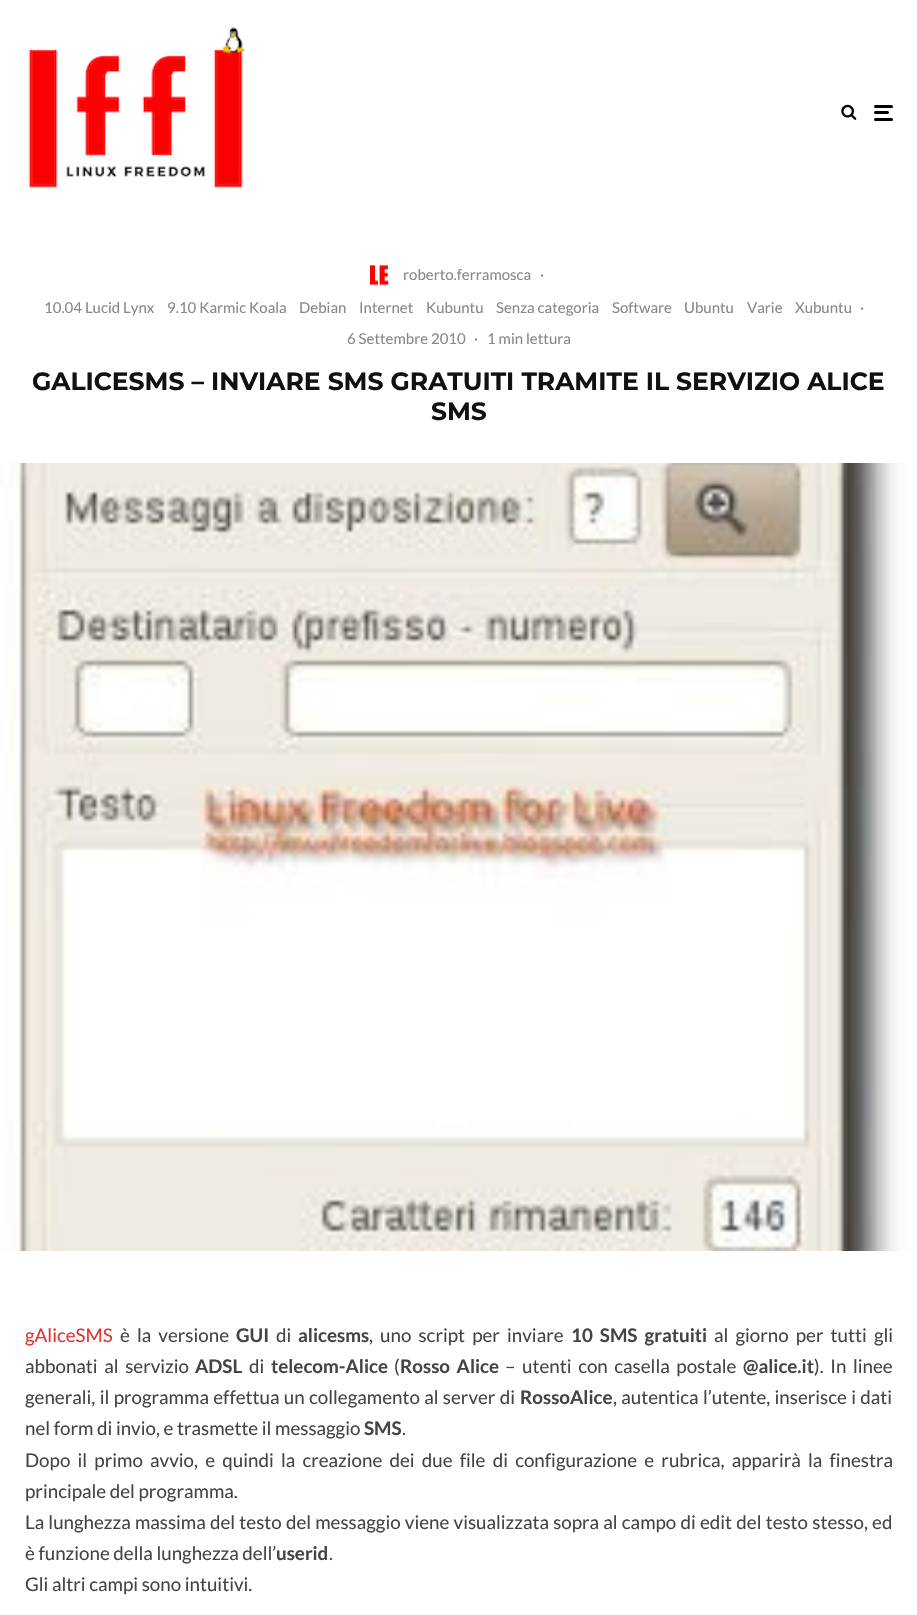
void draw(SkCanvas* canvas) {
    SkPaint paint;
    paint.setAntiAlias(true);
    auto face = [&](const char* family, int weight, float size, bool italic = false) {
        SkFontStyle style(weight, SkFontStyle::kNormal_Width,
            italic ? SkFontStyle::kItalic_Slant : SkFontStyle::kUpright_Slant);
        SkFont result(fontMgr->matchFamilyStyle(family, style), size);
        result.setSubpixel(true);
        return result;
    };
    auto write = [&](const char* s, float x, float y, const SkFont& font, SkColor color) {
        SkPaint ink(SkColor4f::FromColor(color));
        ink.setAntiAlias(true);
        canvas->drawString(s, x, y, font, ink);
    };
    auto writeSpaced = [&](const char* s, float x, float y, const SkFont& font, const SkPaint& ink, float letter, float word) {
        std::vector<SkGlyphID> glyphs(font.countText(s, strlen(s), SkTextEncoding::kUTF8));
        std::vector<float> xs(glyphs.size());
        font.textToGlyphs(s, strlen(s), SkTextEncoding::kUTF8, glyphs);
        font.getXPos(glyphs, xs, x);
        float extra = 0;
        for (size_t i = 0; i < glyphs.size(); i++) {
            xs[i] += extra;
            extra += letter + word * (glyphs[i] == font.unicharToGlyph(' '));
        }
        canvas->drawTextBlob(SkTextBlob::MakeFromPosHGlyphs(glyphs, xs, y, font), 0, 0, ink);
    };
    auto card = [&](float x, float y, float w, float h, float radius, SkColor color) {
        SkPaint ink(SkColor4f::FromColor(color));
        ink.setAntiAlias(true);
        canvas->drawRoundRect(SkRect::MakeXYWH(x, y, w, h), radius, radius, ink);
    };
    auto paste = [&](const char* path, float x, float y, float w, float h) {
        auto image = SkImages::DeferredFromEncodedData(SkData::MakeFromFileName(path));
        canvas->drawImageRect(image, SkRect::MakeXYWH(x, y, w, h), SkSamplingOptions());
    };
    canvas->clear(SK_ColorWHITE);
    paste("pic1.png", 28, 27, 218, 161);
    paste("pic2.png", 841, 104, 16, 16);
    card(874, 111, 15, 3, 1.5f, SK_ColorBLACK);
    card(874, 105, 19, 3, 1.5f, SK_ColorBLACK);
    card(874, 118, 19, 3, 1.5f, SK_ColorBLACK);
    paste("pic3.png", 370, 265, 19, 21);
    auto kFont1 = face("Lato", 400, 15);
    write("roberto.ferramosca", 403, 280, kFont1, SkColorSetRGB(136, 136, 136));
    write("·", 540, 280, kFont1, SkColorSetRGB(136, 136, 136));
    write("10.04 Lucid Lynx", 44, 313, kFont1, SkColorSetRGB(136, 136, 136));
    write("9.10 Karmic Koala", 167, 313, kFont1, SkColorSetRGB(136, 136, 136));
    write("Debian", 299, 313, kFont1, SkColorSetRGB(136, 136, 136));
    write("Internet", 359, 313, kFont1, SkColorSetRGB(136, 136, 136));
    write("Kubuntu", 426, 313, kFont1, SkColorSetRGB(136, 136, 136));
    write("Senza categoria", 496, 313, kFont1, SkColorSetRGB(136, 136, 136));
    write("Software", 612, 313, kFont1, SkColorSetRGB(136, 136, 136));
    write("Ubuntu", 684, 313, kFont1, SkColorSetRGB(136, 136, 136));
    write("Varie", 747, 313, kFont1, SkColorSetRGB(136, 136, 136));
    write("Xubuntu", 795, 313, kFont1, SkColorSetRGB(136, 136, 136));
    write("·", 860, 313, kFont1, SkColorSetRGB(136, 136, 136));
    write("6 Settembre 2010", 347, 344, kFont1, SkColorSetRGB(136, 136, 136));
    write("·", 474, 344, kFont1, SkColorSetRGB(136, 136, 136));
    write("1 min lettura", 487, 344, kFont1, SkColorSetRGB(136, 136, 136));
    auto kFont2 = face("Montserrat", 700, 25);
    write("GALICESMS – INVIARE SMS GRATUITI TRAMITE IL SERVIZIO ALICE", 32, 390, kFont2, SkColorSetRGB(17, 17, 17));
    write("SMS", 431, 420, kFont2, SkColorSetRGB(17, 17, 17));
    paste("pic4.png", 0, 463, 917, 788);
    auto kFont3 = face("Lato", 400, 18.75f);
    write("gAliceSMS", 25, 1342, kFont3, SkColorSetRGB(221, 51, 51));
    paint.setColor(SkColorSetRGB(68, 68, 68));
    writeSpaced("è la versione", 120, 1342, kFont3, paint, 0, 3.5f);
    auto kFont4 = face("Lato", 700, 18.75f);
    write("GUI", 236, 1342, kFont4, SkColorSetRGB(68, 68, 68));
    write("di", 276, 1342, kFont3, SkColorSetRGB(68, 68, 68));
    write("alicesms", 298, 1342, kFont4, SkColorSetRGB(68, 68, 68));
    writeSpaced(", uno script per inviare", 369, 1342, kFont3, paint, 0, 3.5f);
    writeSpaced("10 SMS gratuiti", 571, 1342, kFont4, paint, 0, 3.5f);
    writeSpaced("al giorno per tutti gli", 714, 1342, kFont3, paint, 0, 3.5f);
    writeSpaced("abbonati al servizio", 25, 1373, kFont3, paint, 0, 3);
    write("ADSL", 195, 1373, kFont4, SkColorSetRGB(68, 68, 68));
    write("di", 249, 1373, kFont3, SkColorSetRGB(68, 68, 68));
    write("telecom-Alice", 271, 1373, kFont4, SkColorSetRGB(68, 68, 68));
    write("(", 394, 1373, kFont3, SkColorSetRGB(68, 68, 68));
    writeSpaced("Rosso Alice", 400, 1373, kFont4, paint, 0, 3);
    writeSpaced("– utenti con casella postale", 505, 1373, kFont3, paint, 0, 3);
    write("@alice.it", 743, 1373, kFont4, SkColorSetRGB(68, 68, 68));
    writeSpaced("). In linee", 814, 1373, kFont3, paint, 0, 3);
    writeSpaced("generali, il programma effettua un collegamento al server di", 25, 1404, kFont3, paint, 0, 0.75f);
    write("RossoAlice", 520, 1404, kFont4, SkColorSetRGB(68, 68, 68));
    writeSpaced(", autentica l’utente, inserisce i dati", 613, 1404, kFont3, paint, 0, 0.75f);
    write("nel form di invio, e trasmette il messaggio", 25, 1435, kFont3, SkColorSetRGB(68, 68, 68));
    write("SMS", 364, 1435, kFont4, SkColorSetRGB(68, 68, 68));
    write(".", 402, 1435, kFont3, SkColorSetRGB(68, 68, 68));
    writeSpaced("Dopo il primo avvio, e quindi la creazione dei due file di configurazione e rubrica, apparirà la finestra", 25, 1467, kFont3, paint, 0, 3.6f);
    write("principale del programma.", 25, 1498, kFont3, SkColorSetRGB(68, 68, 68));
    writeSpaced("La lunghezza massima del testo del messaggio viene visualizzata sopra al campo di edit del testo stesso, ed", 25, 1529, kFont3, paint, 0, 0.6f);
    write("è funzione della lunghezza dell’", 25, 1560, kFont3, SkColorSetRGB(68, 68, 68));
    write("userid", 276, 1560, kFont4, SkColorSetRGB(68, 68, 68));
    write(".", 329, 1560, kFont3, SkColorSetRGB(68, 68, 68));
    write("Gli altri campi sono intuitivi.", 25, 1591, kFont3, SkColorSetRGB(68, 68, 68));
}
